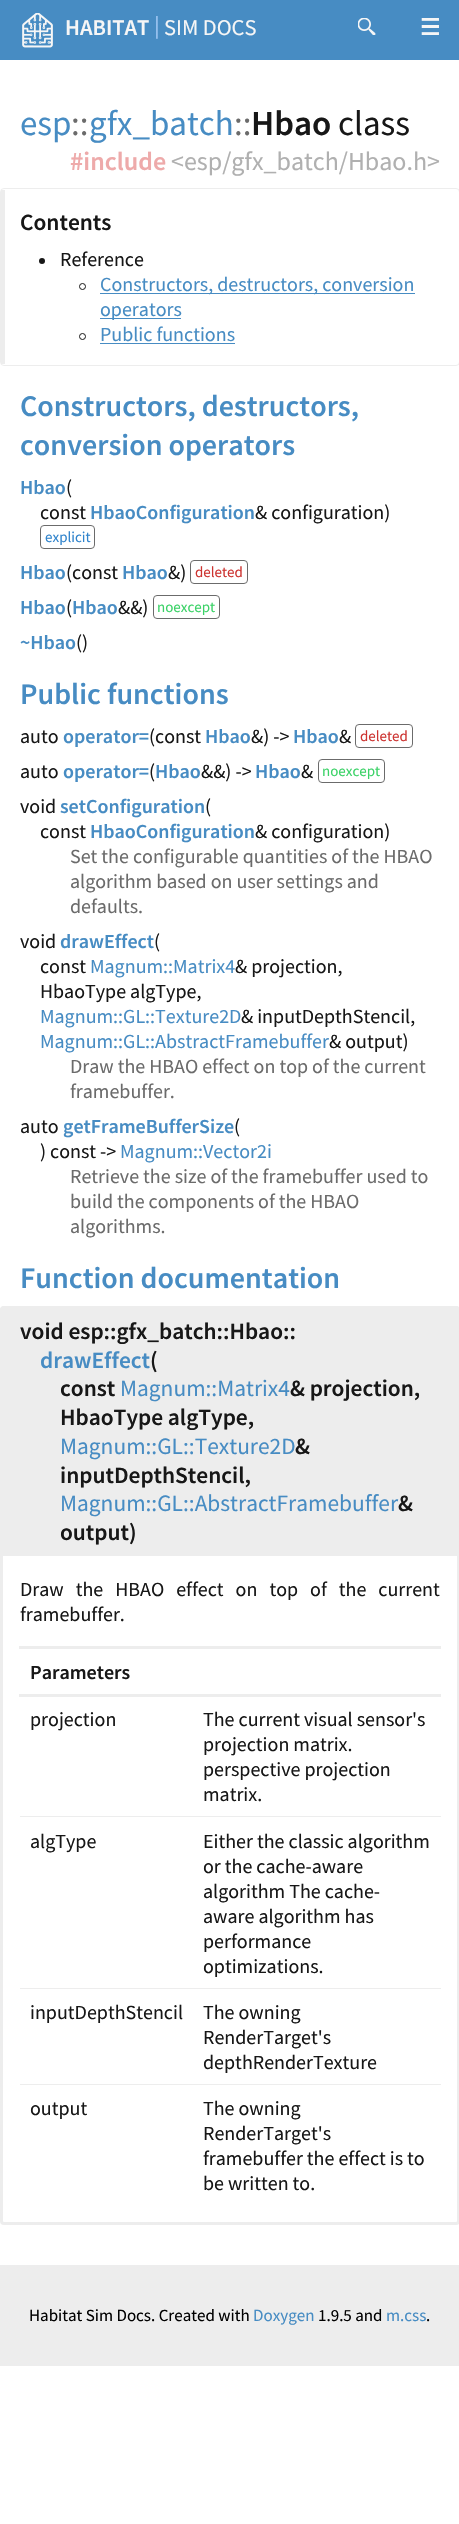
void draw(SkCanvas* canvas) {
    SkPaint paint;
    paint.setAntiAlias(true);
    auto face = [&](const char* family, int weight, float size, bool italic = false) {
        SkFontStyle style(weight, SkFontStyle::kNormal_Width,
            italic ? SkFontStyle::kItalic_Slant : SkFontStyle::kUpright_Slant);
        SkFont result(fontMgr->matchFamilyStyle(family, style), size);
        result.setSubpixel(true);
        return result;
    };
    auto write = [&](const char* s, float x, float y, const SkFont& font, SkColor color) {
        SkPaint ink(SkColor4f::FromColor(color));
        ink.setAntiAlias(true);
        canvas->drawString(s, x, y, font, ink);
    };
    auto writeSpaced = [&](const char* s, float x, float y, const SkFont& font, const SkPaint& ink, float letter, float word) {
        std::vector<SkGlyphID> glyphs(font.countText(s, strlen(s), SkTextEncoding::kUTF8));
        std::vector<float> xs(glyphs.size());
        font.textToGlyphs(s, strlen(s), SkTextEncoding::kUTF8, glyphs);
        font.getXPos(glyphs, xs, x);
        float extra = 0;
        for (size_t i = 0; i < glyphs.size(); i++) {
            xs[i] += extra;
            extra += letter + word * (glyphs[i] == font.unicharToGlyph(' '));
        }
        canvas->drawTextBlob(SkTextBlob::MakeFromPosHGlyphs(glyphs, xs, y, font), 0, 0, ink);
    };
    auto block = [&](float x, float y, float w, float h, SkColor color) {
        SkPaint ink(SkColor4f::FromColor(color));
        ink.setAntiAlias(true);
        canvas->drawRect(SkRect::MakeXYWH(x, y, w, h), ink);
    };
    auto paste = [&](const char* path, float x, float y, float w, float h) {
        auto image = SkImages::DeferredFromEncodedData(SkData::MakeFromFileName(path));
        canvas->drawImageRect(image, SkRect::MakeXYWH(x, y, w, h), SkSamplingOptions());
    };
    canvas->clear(SK_ColorWHITE);
    block(0, 0, 459, 60, SkColorSetRGB(71, 140, 195));
    paste("pic1.png", 22, 13, 31, 35);
    auto kFont1 = face("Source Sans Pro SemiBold", 600, 22.5f);
    write("HABITAT", 65, 35, kFont1, SkColorSetRGB(246, 246, 246));
    write("|", 154, 33, kFont1, SkColorSetRGB(148, 191, 237));
    auto kFont2 = face("Source Sans Pro", 400, 22.5f);
    write("SIM DOCS", 164, 35, kFont2, SkColorSetRGB(246, 246, 246));
    paste("pic2.png", 358, 18, 18, 17);
    auto kFont3 = face("DejaVu Sans", 700, 22.5f);
    write("☰", 420, 35, kFont3, SkColorSetRGB(246, 246, 246));
    auto kFont4 = face("Source Sans Pro", 400, 35);
    write("esp", 20, 135, kFont4, SkColorSetRGB(71, 140, 195));
    write("::", 71, 135, kFont4, SkColorSetRGB(107, 107, 107));
    write("gfx_batch", 89, 135, kFont4, SkColorSetRGB(71, 140, 195));
    write("::", 234, 135, kFont4, SkColorSetRGB(107, 107, 107));
    auto kFont5 = face("Source Sans Pro SemiBold", 600, 35);
    write("Hbao", 251, 135, kFont5, SkColorSetRGB(23, 23, 23));
    write("class", 338, 135, kFont4, SkColorSetRGB(23, 23, 23));
    auto kFont6 = face("Source Sans Pro SemiBold", 600, 26);
    write("#include", 70, 170, kFont6, SkColorSetRGB(238, 170, 170));
    auto kFont7 = face("Source Sans Pro", 400, 26);
    write("<esp/gfx_batch/Hbao.h>", 171, 170, kFont7, SkColorSetRGB(176, 176, 176));
    paint.setStyle(SkPaint::kStroke_Style);
    paint.setStrokeWidth(1);
    paint.setColor(SkColorSetRGB(237, 237, 237));
    canvas->drawRoundRect(SkRect::MakeXYWH(0.5f, 188.5f, 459, 177), 3.5f, 3.5f, paint);
    block(1, 190, 4, 174, SkColorSetRGB(237, 237, 237));
    auto kFont8 = face("Source Sans Pro SemiBold", 600, 23.4f);
    write("Contents", 20, 230, kFont8, SkColorSetRGB(23, 23, 23));
    paint.setStyle(SkPaint::kFill_Style);
    paint.setColor(SkColorSetRGB(23, 23, 23));
    canvas->drawCircle(42, 261, 3, paint);
    auto kFont9 = face("Source Sans Pro", 400, 20);
    write("Reference", 60, 266, kFont9, SkColorSetRGB(23, 23, 23));
    paint.setStyle(SkPaint::kStroke_Style);
    canvas->drawCircle(82.5f, 286.5f, 3, paint);
    block(100, 293, 315, 1, SkColorSetRGB(71, 140, 195));
    write("Constructors, destructors, conversion", 100, 291, kFont9, SkColorSetRGB(71, 140, 195));
    block(100, 318, 81, 1, SkColorSetRGB(71, 140, 195));
    write("operators", 100, 316, kFont9, SkColorSetRGB(71, 140, 195));
    canvas->drawCircle(82.5f, 336.5f, 3, paint);
    write("Public functions", 100, 341, kFont9, SkColorSetRGB(71, 140, 195));
    block(100, 343, 135, 1, SkColorSetRGB(71, 140, 195));
    auto kFont10 = face("Source Sans Pro SemiBold", 600, 30);
    write("Constructors, destructors,", 20, 416, kFont10, SkColorSetRGB(71, 140, 195));
    write("conversion operators", 20, 455, kFont10, SkColorSetRGB(71, 140, 195));
    auto kFont11 = face("Source Sans Pro SemiBold", 600, 20);
    write("Hbao", 20, 494, kFont11, SkColorSetRGB(71, 140, 195));
    write("(", 66, 494, kFont9, SkColorSetRGB(23, 23, 23));
    write("const", 40, 519, kFont9, SkColorSetRGB(23, 23, 23));
    write("HbaoConfiguration", 90, 519, kFont11, SkColorSetRGB(71, 140, 195));
    write("& configuration)", 255, 519, kFont9, SkColorSetRGB(23, 23, 23));
    paint.setColor(SkColorSetRGB(107, 107, 107));
    canvas->drawRoundRect(SkRect::MakeXYWH(40.5f, 525.5f, 54, 23), 3.5f, 3.5f, paint);
    auto kFont12 = face("Source Sans Pro", 400, 15);
    write("explicit", 45, 542, kFont12, SkColorSetRGB(47, 131, 204));
    write("Hbao", 20, 579, kFont11, SkColorSetRGB(71, 140, 195));
    write("(const", 66, 579, kFont9, SkColorSetRGB(23, 23, 23));
    write("Hbao", 122, 579, kFont11, SkColorSetRGB(71, 140, 195));
    write("&)", 168, 579, kFont9, SkColorSetRGB(23, 23, 23));
    canvas->drawRoundRect(SkRect::MakeXYWH(190.5f, 560.5f, 57, 23), 3.5f, 3.5f, paint);
    write("deleted", 195, 577, kFont12, SkColorSetRGB(205, 52, 49));
    write("Hbao", 20, 614, kFont11, SkColorSetRGB(71, 140, 195));
    write("(", 66, 614, kFont9, SkColorSetRGB(23, 23, 23));
    write("Hbao", 72, 614, kFont11, SkColorSetRGB(71, 140, 195));
    write("&&)", 118, 614, kFont9, SkColorSetRGB(23, 23, 23));
    canvas->drawRoundRect(SkRect::MakeXYWH(153.5f, 595.5f, 66, 23), 3.5f, 3.5f, paint);
    write("noexcept", 157, 612, kFont12, SkColorSetRGB(59, 210, 103));
    write("~Hbao", 20, 649, kFont11, SkColorSetRGB(71, 140, 195));
    write("()", 76, 649, kFont9, SkColorSetRGB(23, 23, 23));
    write("Public functions", 20, 704, kFont10, SkColorSetRGB(71, 140, 195));
    write("auto", 20, 743, kFont9, SkColorSetRGB(23, 23, 23));
    write("operator=", 63, 743, kFont11, SkColorSetRGB(71, 140, 195));
    write("(const", 149, 743, kFont9, SkColorSetRGB(23, 23, 23));
    write("Hbao", 205, 743, kFont11, SkColorSetRGB(71, 140, 195));
    write("&) ->", 251, 743, kFont9, SkColorSetRGB(23, 23, 23));
    write("Hbao", 293, 743, kFont11, SkColorSetRGB(71, 140, 195));
    write("&", 339, 743, kFont9, SkColorSetRGB(23, 23, 23));
    canvas->drawRoundRect(SkRect::MakeXYWH(355.5f, 724.5f, 57, 23), 3.5f, 3.5f, paint);
    write("deleted", 360, 741, kFont12, SkColorSetRGB(205, 52, 49));
    write("auto", 20, 778, kFont9, SkColorSetRGB(23, 23, 23));
    write("operator=", 63, 778, kFont11, SkColorSetRGB(71, 140, 195));
    write("(", 149, 778, kFont9, SkColorSetRGB(23, 23, 23));
    write("Hbao", 155, 778, kFont11, SkColorSetRGB(71, 140, 195));
    write("&&) ->", 201, 778, kFont9, SkColorSetRGB(23, 23, 23));
    write("Hbao", 255, 778, kFont11, SkColorSetRGB(71, 140, 195));
    write("&", 301, 778, kFont9, SkColorSetRGB(23, 23, 23));
    canvas->drawRoundRect(SkRect::MakeXYWH(318.5f, 759.5f, 66, 23), 3.5f, 3.5f, paint);
    write("noexcept", 322, 776, kFont12, SkColorSetRGB(59, 210, 103));
    write("void", 20, 813, kFont9, SkColorSetRGB(23, 23, 23));
    write("setConfiguration", 60, 813, kFont11, SkColorSetRGB(71, 140, 195));
    write("(", 205, 813, kFont9, SkColorSetRGB(23, 23, 23));
    write("const", 40, 838, kFont9, SkColorSetRGB(23, 23, 23));
    write("HbaoConfiguration", 90, 838, kFont11, SkColorSetRGB(71, 140, 195));
    write("& configuration)", 255, 838, kFont9, SkColorSetRGB(23, 23, 23));
    write("Set the configurable quantities of the HBAO", 70, 863, kFont9, SkColorSetRGB(107, 107, 107));
    write("algorithm based on user settings and", 70, 888, kFont9, SkColorSetRGB(107, 107, 107));
    write("defaults.", 70, 913, kFont9, SkColorSetRGB(107, 107, 107));
    write("void", 20, 948, kFont9, SkColorSetRGB(23, 23, 23));
    write("drawEffect", 60, 948, kFont11, SkColorSetRGB(71, 140, 195));
    write("(", 154, 948, kFont9, SkColorSetRGB(23, 23, 23));
    write("const", 40, 973, kFont9, SkColorSetRGB(23, 23, 23));
    write("Magnum::Matrix4", 90, 973, kFont9, SkColorSetRGB(71, 140, 195));
    write("& projection,", 235, 973, kFont9, SkColorSetRGB(23, 23, 23));
    write("HbaoType algType,", 40, 998, kFont9, SkColorSetRGB(23, 23, 23));
    write("Magnum::GL::Texture2D", 40, 1023, kFont9, SkColorSetRGB(71, 140, 195));
    write("& inputDepthStencil,", 241, 1023, kFont9, SkColorSetRGB(23, 23, 23));
    write("Magnum::GL::AbstractFramebuffer", 40, 1048, kFont9, SkColorSetRGB(71, 140, 195));
    write("& output)", 329, 1048, kFont9, SkColorSetRGB(23, 23, 23));
    write("Draw the HBAO effect on top of the current", 70, 1073, kFont9, SkColorSetRGB(107, 107, 107));
    write("framebuffer.", 70, 1098, kFont9, SkColorSetRGB(107, 107, 107));
    write("auto", 20, 1133, kFont9, SkColorSetRGB(23, 23, 23));
    write("getFrameBufferSize", 63, 1133, kFont11, SkColorSetRGB(71, 140, 195));
    write("(", 234, 1133, kFont9, SkColorSetRGB(23, 23, 23));
    write(") const ->", 40, 1158, kFont9, SkColorSetRGB(23, 23, 23));
    write("Magnum::Vector2i", 120, 1158, kFont9, SkColorSetRGB(71, 140, 195));
    write("Retrieve the size of the framebuffer used to", 70, 1183, kFont9, SkColorSetRGB(107, 107, 107));
    write("build the components of the HBAO", 70, 1208, kFont9, SkColorSetRGB(107, 107, 107));
    write("algorithms.", 70, 1233, kFont9, SkColorSetRGB(107, 107, 107));
    write("Function documentation", 20, 1288, kFont10, SkColorSetRGB(71, 140, 195));
    paint.setStrokeWidth(3);
    paint.setColor(SkColorSetRGB(237, 237, 237));
    canvas->drawRoundRect(SkRect::MakeXYWH(1.5f, 1307.5f, 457, 916), 2.5f, 2.5f, paint);
    paint.setStyle(SkPaint::kFill_Style);
    canvas->drawPath(SkPathBuilder().moveTo(4, 1306).lineTo(456, 1306).cubicTo(458, 1306, 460, 1308, 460, 1310).lineTo(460, 1556).lineTo(0, 1556).lineTo(0, 1310).cubicTo(0, 1308, 2, 1306, 4, 1306).close().detach(), paint);
    write("void esp::gfx_batch::Hbao::", 20, 1339, kFont8, SkColorSetRGB(23, 23, 23));
    write("drawEffect", 40, 1368, kFont8, SkColorSetRGB(71, 140, 195));
    write("(", 150, 1368, kFont8, SkColorSetRGB(23, 23, 23));
    write("const", 60, 1396, kFont8, SkColorSetRGB(23, 23, 23));
    auto kFont13 = face("Source Sans Pro", 400, 23.4f);
    write("Magnum::Matrix4", 120, 1396, kFont13, SkColorSetRGB(71, 140, 195));
    write("& projection,", 290, 1396, kFont8, SkColorSetRGB(23, 23, 23));
    write("HbaoType algType,", 60, 1425, kFont8, SkColorSetRGB(23, 23, 23));
    write("Magnum::GL::Texture2D", 60, 1454, kFont13, SkColorSetRGB(71, 140, 195));
    write("&", 295, 1454, kFont8, SkColorSetRGB(23, 23, 23));
    write("inputDepthStencil,", 60, 1483, kFont8, SkColorSetRGB(23, 23, 23));
    write("Magnum::GL::AbstractFramebuffer", 60, 1511, kFont13, SkColorSetRGB(71, 140, 195));
    write("&", 398, 1511, kFont8, SkColorSetRGB(23, 23, 23));
    write("output)", 60, 1540, kFont8, SkColorSetRGB(23, 23, 23));
    paint.setColor(SkColorSetRGB(23, 23, 23));
    writeSpaced("Draw the HBAO effect on top of the current", 20, 1596, kFont9, paint, 0, 8);
    write("framebuffer.", 20, 1621, kFont9, SkColorSetRGB(23, 23, 23));
    block(19, 1646, 422, 3, SkColorSetRGB(237, 237, 237));
    block(19, 1694, 422, 3, SkColorSetRGB(237, 237, 237));
    write("Parameters", 30, 1679, kFont11, SkColorSetRGB(23, 23, 23));
    write("projection", 30, 1726, kFont9, SkColorSetRGB(23, 23, 23));
    write("The current visual sensor's", 203, 1726, kFont9, SkColorSetRGB(23, 23, 23));
    write("projection matrix.", 203, 1751, kFont9, SkColorSetRGB(23, 23, 23));
    write("perspective projection", 203, 1776, kFont9, SkColorSetRGB(23, 23, 23));
    write("matrix.", 203, 1801, kFont9, SkColorSetRGB(23, 23, 23));
    write("algType", 30, 1848, kFont9, SkColorSetRGB(23, 23, 23));
    block(20, 1816, 421, 1, SkColorSetRGB(237, 237, 237));
    write("Either the classic algorithm", 203, 1848, kFont9, SkColorSetRGB(23, 23, 23));
    write("or the cache-aware", 203, 1873, kFont9, SkColorSetRGB(23, 23, 23));
    write("algorithm The cache-", 203, 1898, kFont9, SkColorSetRGB(23, 23, 23));
    write("aware algorithm has", 203, 1923, kFont9, SkColorSetRGB(23, 23, 23));
    write("performance", 203, 1948, kFont9, SkColorSetRGB(23, 23, 23));
    write("optimizations.", 203, 1973, kFont9, SkColorSetRGB(23, 23, 23));
    write("inputDepthStencil", 30, 2019, kFont9, SkColorSetRGB(23, 23, 23));
    block(20, 1988, 421, 1, SkColorSetRGB(237, 237, 237));
    write("The owning", 203, 2019, kFont9, SkColorSetRGB(23, 23, 23));
    write("RenderTarget's", 203, 2044, kFont9, SkColorSetRGB(23, 23, 23));
    write("depthRenderTexture", 203, 2069, kFont9, SkColorSetRGB(23, 23, 23));
    write("output", 30, 2115, kFont9, SkColorSetRGB(23, 23, 23));
    block(20, 2084, 421, 1, SkColorSetRGB(237, 237, 237));
    write("The owning", 203, 2115, kFont9, SkColorSetRGB(23, 23, 23));
    write("RenderTarget's", 203, 2140, kFont9, SkColorSetRGB(23, 23, 23));
    write("framebuffer the effect is to", 203, 2165, kFont9, SkColorSetRGB(23, 23, 23));
    write("be written to.", 203, 2190, kFont9, SkColorSetRGB(23, 23, 23));
    block(0, 2265, 459, 101, SkColorSetRGB(237, 237, 237));
    auto kFont14 = face("Source Sans Pro", 400, 17);
    write("Habitat Sim Docs. Created with", 29, 2321, kFont14, SK_ColorBLACK);
    write("Doxygen", 253, 2321, kFont14, SkColorSetRGB(71, 140, 195));
    write("1.9.5 and", 318, 2321, kFont14, SK_ColorBLACK);
    write("m.css", 386, 2321, kFont14, SkColorSetRGB(71, 140, 195));
    write(".", 426, 2321, kFont14, SK_ColorBLACK);
}
